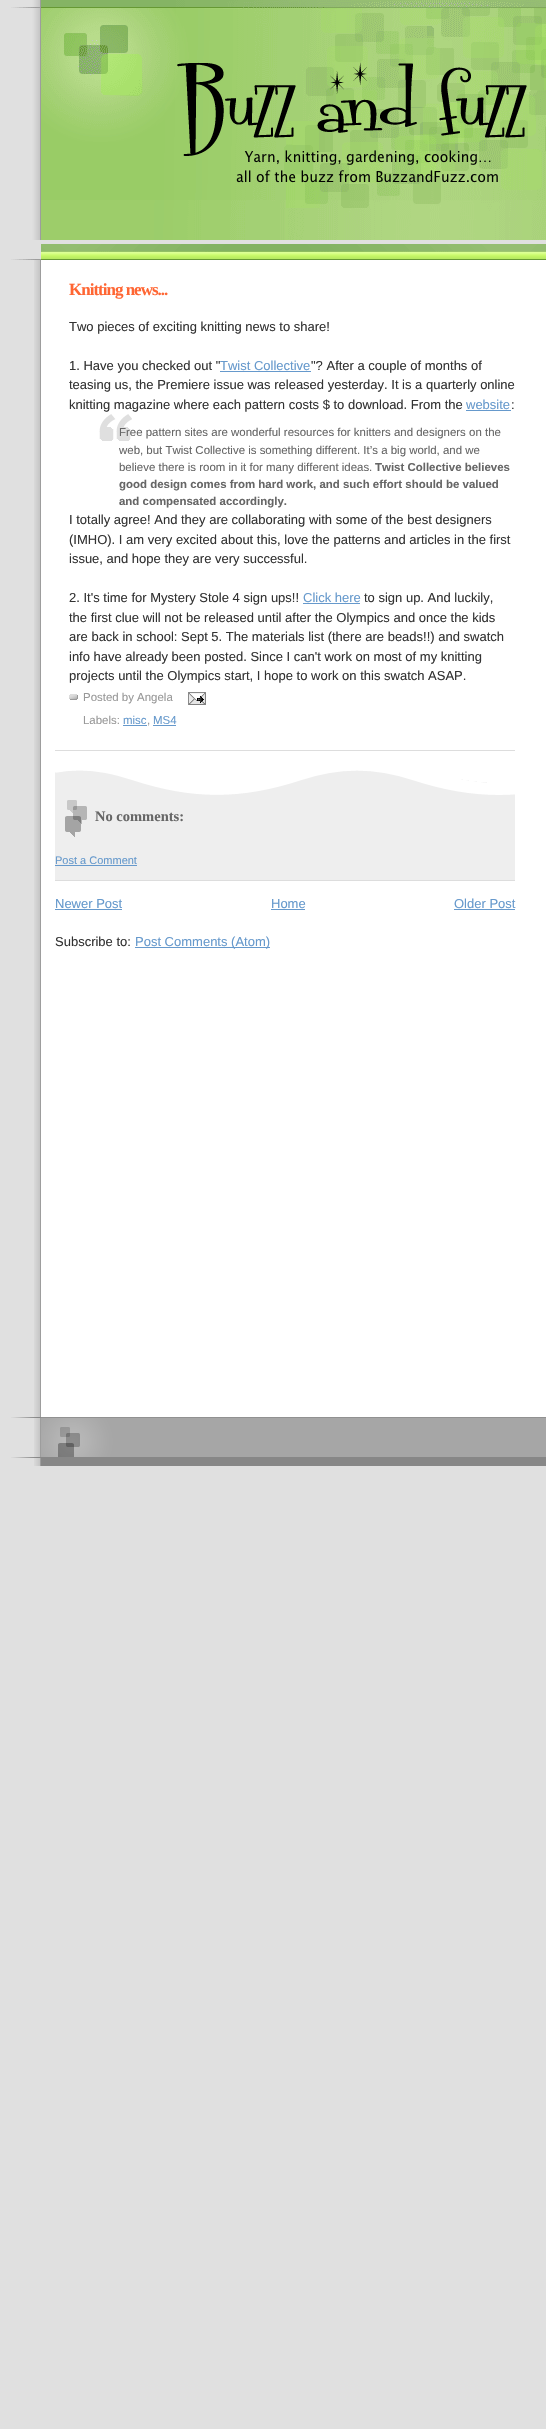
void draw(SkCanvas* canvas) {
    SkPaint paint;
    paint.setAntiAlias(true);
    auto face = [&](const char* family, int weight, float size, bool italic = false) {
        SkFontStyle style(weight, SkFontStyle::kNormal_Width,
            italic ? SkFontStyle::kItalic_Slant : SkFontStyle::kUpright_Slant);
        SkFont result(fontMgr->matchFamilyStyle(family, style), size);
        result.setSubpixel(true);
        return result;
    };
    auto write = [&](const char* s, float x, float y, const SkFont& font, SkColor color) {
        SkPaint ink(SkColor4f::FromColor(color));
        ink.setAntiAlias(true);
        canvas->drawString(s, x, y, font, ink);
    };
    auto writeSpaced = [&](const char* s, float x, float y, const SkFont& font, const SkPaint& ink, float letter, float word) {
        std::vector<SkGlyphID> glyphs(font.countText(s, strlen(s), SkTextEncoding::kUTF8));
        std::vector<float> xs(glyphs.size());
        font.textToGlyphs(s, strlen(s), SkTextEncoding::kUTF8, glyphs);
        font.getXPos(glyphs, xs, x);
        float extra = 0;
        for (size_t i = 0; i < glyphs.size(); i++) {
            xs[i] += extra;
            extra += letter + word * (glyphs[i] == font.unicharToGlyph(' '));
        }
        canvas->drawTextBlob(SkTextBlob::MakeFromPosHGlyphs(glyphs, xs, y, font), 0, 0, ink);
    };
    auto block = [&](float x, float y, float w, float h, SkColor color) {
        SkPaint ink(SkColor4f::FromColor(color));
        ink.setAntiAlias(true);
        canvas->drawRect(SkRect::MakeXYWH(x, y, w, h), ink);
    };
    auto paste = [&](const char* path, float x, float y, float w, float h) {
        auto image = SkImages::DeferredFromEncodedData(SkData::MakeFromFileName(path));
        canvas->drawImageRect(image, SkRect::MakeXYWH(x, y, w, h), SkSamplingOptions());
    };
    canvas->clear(SkColorSetRGB(224, 224, 224));
    paste("pic1.png", 34, 260, 512, 1206);
    paste("pic2.png", 11, 0, 535, 240);
    paste("pic3.png", 11, 244, 535, 16);
    paste("pic4.png", 177, 62, 350, 121);
    block(55, 750, 460, 1, SkColorSetRGB(221, 221, 221));
    auto kFont1 = face("Liberation Serif", 700, 17);
    paint.setColor(SkColorSetRGB(255, 102, 51));
    writeSpaced("Knitting news...", 69, 295, kFont1, paint, -1, 0);
    auto kFont2 = face("Liberation Sans", 400, 13);
    write("Two pieces of exciting knitting news to share!", 69, 331, kFont2, SkColorSetRGB(51, 51, 51));
    write("1. Have you checked out \"", 69, 370, kFont2, SkColorSetRGB(51, 51, 51));
    write("Twist Collective", 220, 370, kFont2, SkColorSetRGB(102, 153, 204));
    block(220, 371, 91, 1, SkColorSetRGB(102, 153, 204));
    write("\"? After a couple of months of", 311, 370, kFont2, SkColorSetRGB(51, 51, 51));
    write("teasing us, the Premiere issue was released yesterday. It is a quarterly online", 69, 389, kFont2, SkColorSetRGB(51, 51, 51));
    write("knitting magazine where each pattern costs $ to download. From the", 69, 409, kFont2, SkColorSetRGB(51, 51, 51));
    write("website", 466, 409, kFont2, SkColorSetRGB(102, 153, 204));
    block(466, 410, 45, 1, SkColorSetRGB(102, 153, 204));
    write(":", 511, 409, kFont2, SkColorSetRGB(51, 51, 51));
    paste("pic5.png", 99, 414, 33, 27);
    auto kFont3 = face("Liberation Sans", 400, 11.45f);
    write("Free pattern sites are wonderful resources for knitters and designers on the", 119, 436, kFont3, SkColorSetRGB(102, 102, 102));
    write("web, but Twist Collective is something different. It’s a big world, and we", 119, 454, kFont3, SkColorSetRGB(102, 102, 102));
    write("believe there is room in it for many different ideas.", 119, 471, kFont3, SkColorSetRGB(102, 102, 102));
    auto kFont4 = face("Liberation Sans", 700, 11.45f);
    write("Twist Collective believes", 375, 471, kFont4, SkColorSetRGB(102, 102, 102));
    write("good design comes from hard work, and such effort should be valued", 119, 488, kFont4, SkColorSetRGB(102, 102, 102));
    write("and compensated accordingly.", 119, 505, kFont4, SkColorSetRGB(102, 102, 102));
    write("I totally agree! And they are collaborating with some of the best designers", 69, 524, kFont2, SkColorSetRGB(51, 51, 51));
    write("(IMHO). I am very excited about this, love the patterns and articles in the first", 69, 544, kFont2, SkColorSetRGB(51, 51, 51));
    write("issue, and hope they are very successful.", 69, 563, kFont2, SkColorSetRGB(51, 51, 51));
    write("2. It's time for Mystery Stole 4 sign ups!!", 69, 602, kFont2, SkColorSetRGB(51, 51, 51));
    write("Click here", 303, 602, kFont2, SkColorSetRGB(102, 153, 204));
    block(303, 603, 57, 1, SkColorSetRGB(102, 153, 204));
    write("to sign up. And luckily,", 364, 602, kFont2, SkColorSetRGB(51, 51, 51));
    write("the first clue will not be released until after the Olympics and once the kids", 69, 622, kFont2, SkColorSetRGB(51, 51, 51));
    write("are back in school: Sept 5. The materials list (there are beads!!) and swatch", 69, 641, kFont2, SkColorSetRGB(51, 51, 51));
    write("info have already been posted. Since I can't work on most of my knitting", 69, 661, kFont2, SkColorSetRGB(51, 51, 51));
    write("projects until the Olympics start, I hope to work on this swatch ASAP.", 69, 680, kFont2, SkColorSetRGB(51, 51, 51));
    paste("pic6.png", 69, 694, 9, 6);
    write("Posted by Angela", 83, 701, kFont3, SkColorSetRGB(153, 153, 153));
    paste("pic7.png", 188, 692, 18, 13);
    write("Labels:", 83, 724, kFont3, SkColorSetRGB(153, 153, 153));
    write("misc", 123, 724, kFont3, SkColorSetRGB(102, 153, 204));
    write(",", 147, 724, kFont3, SkColorSetRGB(153, 153, 153));
    block(123, 725, 24, 1, SkColorSetRGB(102, 153, 204));
    block(153, 725, 23, 1, SkColorSetRGB(102, 153, 204));
    write("MS4", 153, 724, kFont3, SkColorSetRGB(102, 153, 204));
    block(55, 771, 460, 109, SkColorSetRGB(238, 238, 238));
    paste("pic8.png", 55, 770, 460, 25);
    paste("pic9.png", 65, 800, 22, 37);
    auto kFont5 = face("Liberation Serif", 700, 14.5f);
    write("No comments:", 95, 821, kFont5, SkColorSetRGB(102, 102, 102));
    block(55, 880, 460, 1, SkColorSetRGB(221, 221, 221));
    auto kFont6 = face("Liberation Sans", 400, 11);
    write("Post a Comment", 55, 864, kFont6, SkColorSetRGB(102, 153, 204));
    block(55, 865, 82, 1, SkColorSetRGB(102, 153, 204));
    write("Newer Post", 55, 908, kFont2, SkColorSetRGB(102, 153, 204));
    block(55, 909, 67, 1, SkColorSetRGB(102, 153, 204));
    write("Home", 271, 908, kFont2, SkColorSetRGB(102, 153, 204));
    block(271, 909, 34, 1, SkColorSetRGB(102, 153, 204));
    write("Older Post", 454, 908, kFont2, SkColorSetRGB(102, 153, 204));
    block(454, 909, 61, 1, SkColorSetRGB(102, 153, 204));
    write("Subscribe to:", 55, 946, kFont2, SkColorSetRGB(51, 51, 51));
    block(135, 947, 135, 1, SkColorSetRGB(102, 153, 204));
    write("Post Comments (Atom)", 135, 946, kFont2, SkColorSetRGB(102, 153, 204));
    paste("pic10.png", 11, 1457, 535, 9);
    paste("pic11.png", 11, 1417, 535, 40);
}
